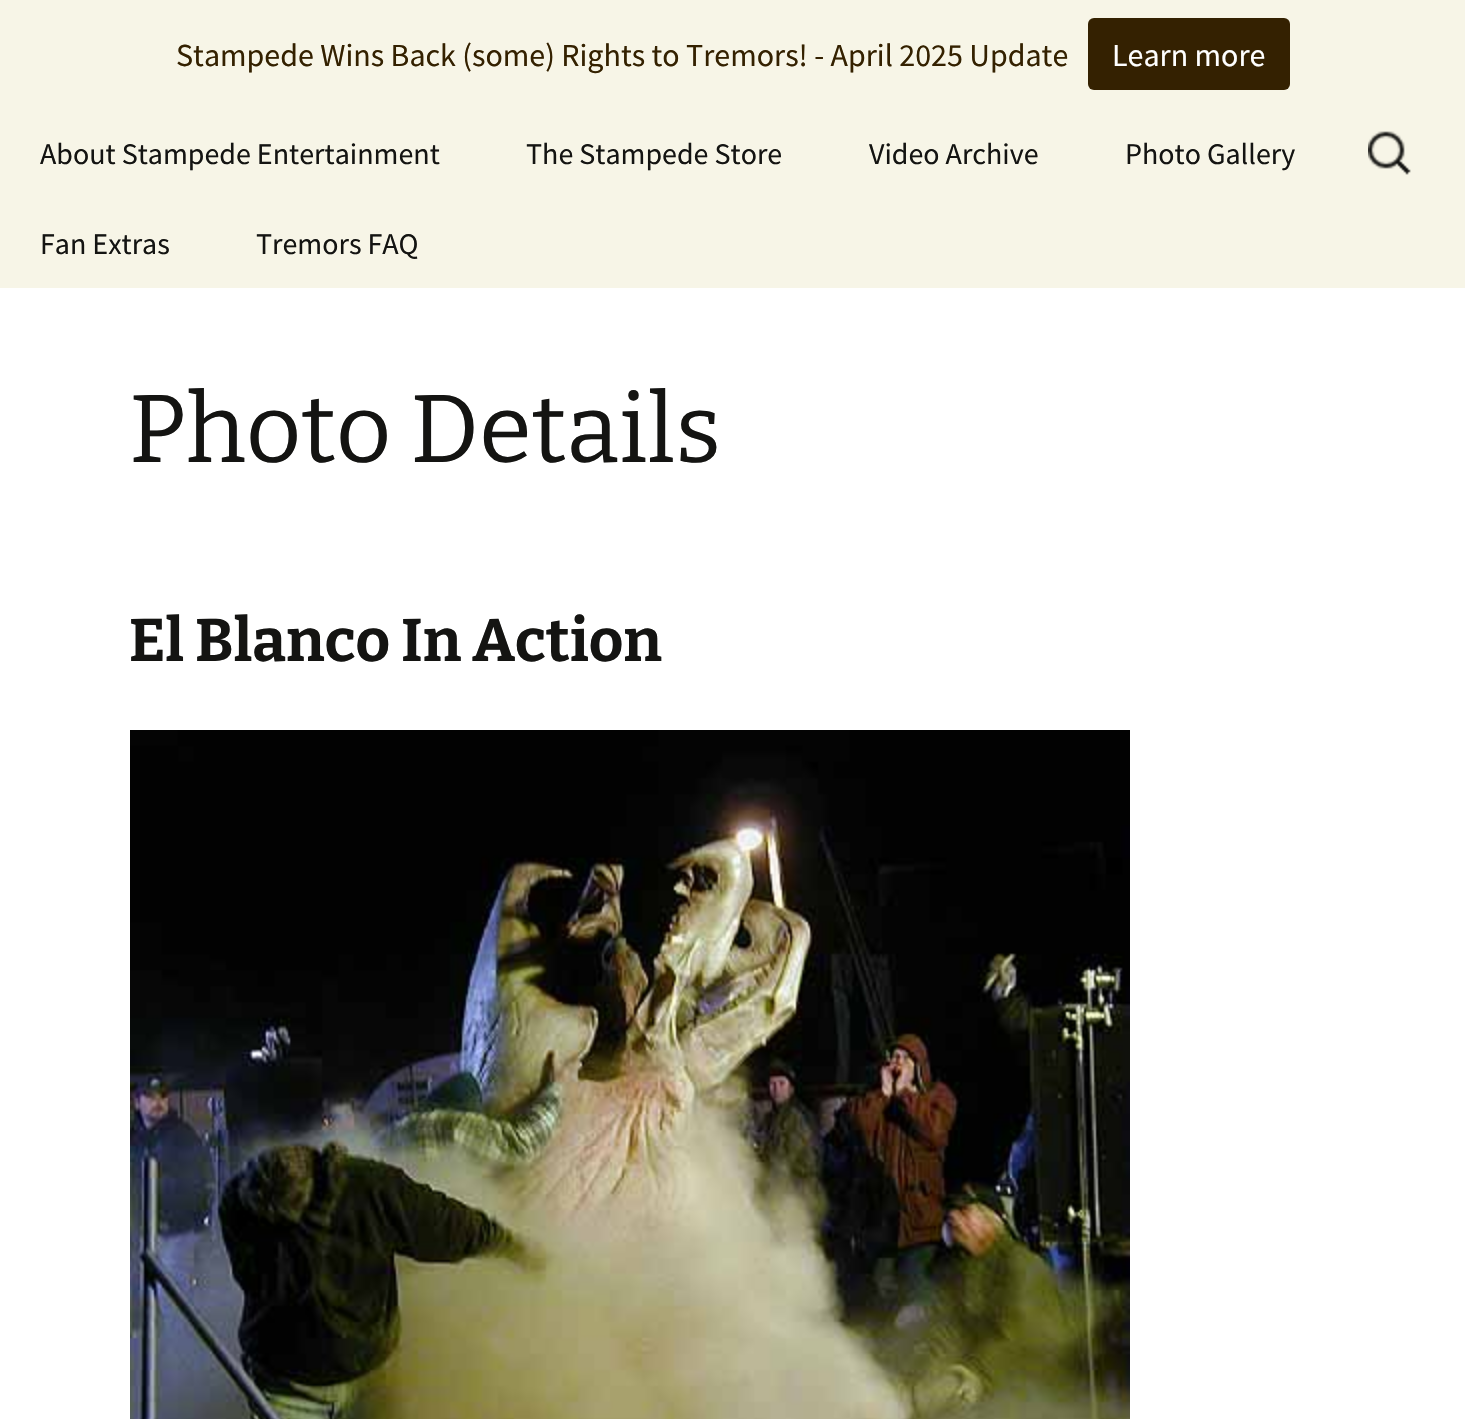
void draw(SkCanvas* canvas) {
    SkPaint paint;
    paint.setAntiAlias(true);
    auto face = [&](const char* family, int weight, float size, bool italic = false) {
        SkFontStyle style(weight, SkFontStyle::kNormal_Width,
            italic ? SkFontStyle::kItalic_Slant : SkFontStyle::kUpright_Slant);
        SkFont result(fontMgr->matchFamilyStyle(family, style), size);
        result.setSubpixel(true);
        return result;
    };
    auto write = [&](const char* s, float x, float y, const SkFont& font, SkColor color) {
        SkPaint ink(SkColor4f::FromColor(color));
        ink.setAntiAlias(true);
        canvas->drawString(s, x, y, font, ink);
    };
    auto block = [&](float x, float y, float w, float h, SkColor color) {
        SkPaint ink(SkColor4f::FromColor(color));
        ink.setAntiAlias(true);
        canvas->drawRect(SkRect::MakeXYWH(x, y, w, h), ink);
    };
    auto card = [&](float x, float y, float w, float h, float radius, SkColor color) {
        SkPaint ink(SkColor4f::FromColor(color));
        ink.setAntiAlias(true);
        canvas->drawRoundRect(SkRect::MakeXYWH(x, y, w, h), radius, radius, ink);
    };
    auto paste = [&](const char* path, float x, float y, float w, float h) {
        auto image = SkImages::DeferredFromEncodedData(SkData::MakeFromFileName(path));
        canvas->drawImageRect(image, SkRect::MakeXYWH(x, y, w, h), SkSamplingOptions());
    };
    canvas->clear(SK_ColorWHITE);
    block(0, 0, 1465, 288, SkColorSetRGB(247, 245, 231));
    auto kFont1 = face("Source Sans Pro", 400, 32);
    write("Stampede Wins Back (some) Rights to Tremors! - April 2025 Update", 176, 66, kFont1, SkColorSetRGB(52, 33, 0));
    card(1088, 18, 202, 72, 6, SkColorSetRGB(52, 33, 1));
    write("Learn more", 1112, 66, kFont1, SK_ColorWHITE);
    auto kFont2 = face("Source Sans Pro", 400, 30);
    write("About Stampede Entertainment", 40, 164, kFont2, SkColorSetRGB(20, 20, 18));
    write("The Stampede Store", 526, 164, kFont2, SkColorSetRGB(20, 20, 18));
    write("Video Archive", 869, 164, kFont2, SkColorSetRGB(20, 20, 18));
    write("Photo Gallery", 1125, 164, kFont2, SkColorSetRGB(20, 20, 18));
    write("Fan Extras", 40, 254, kFont2, SkColorSetRGB(20, 20, 18));
    write("Tremors FAQ", 256, 254, kFont2, SkColorSetRGB(20, 20, 18));
    paste("pic1.png", 1368, 131, 43, 44);
    auto kFont3 = face("Bitter", 400, 96);
    write("Photo Details", 129, 462, kFont3, SkColorSetRGB(20, 20, 18));
    auto kFont4 = face("Bitter", 700, 60);
    write("El Blanco In Action", 129, 661, kFont4, SkColorSetRGB(20, 20, 18));
    paste("pic2.png", 130, 730, 1000, 689);
}
